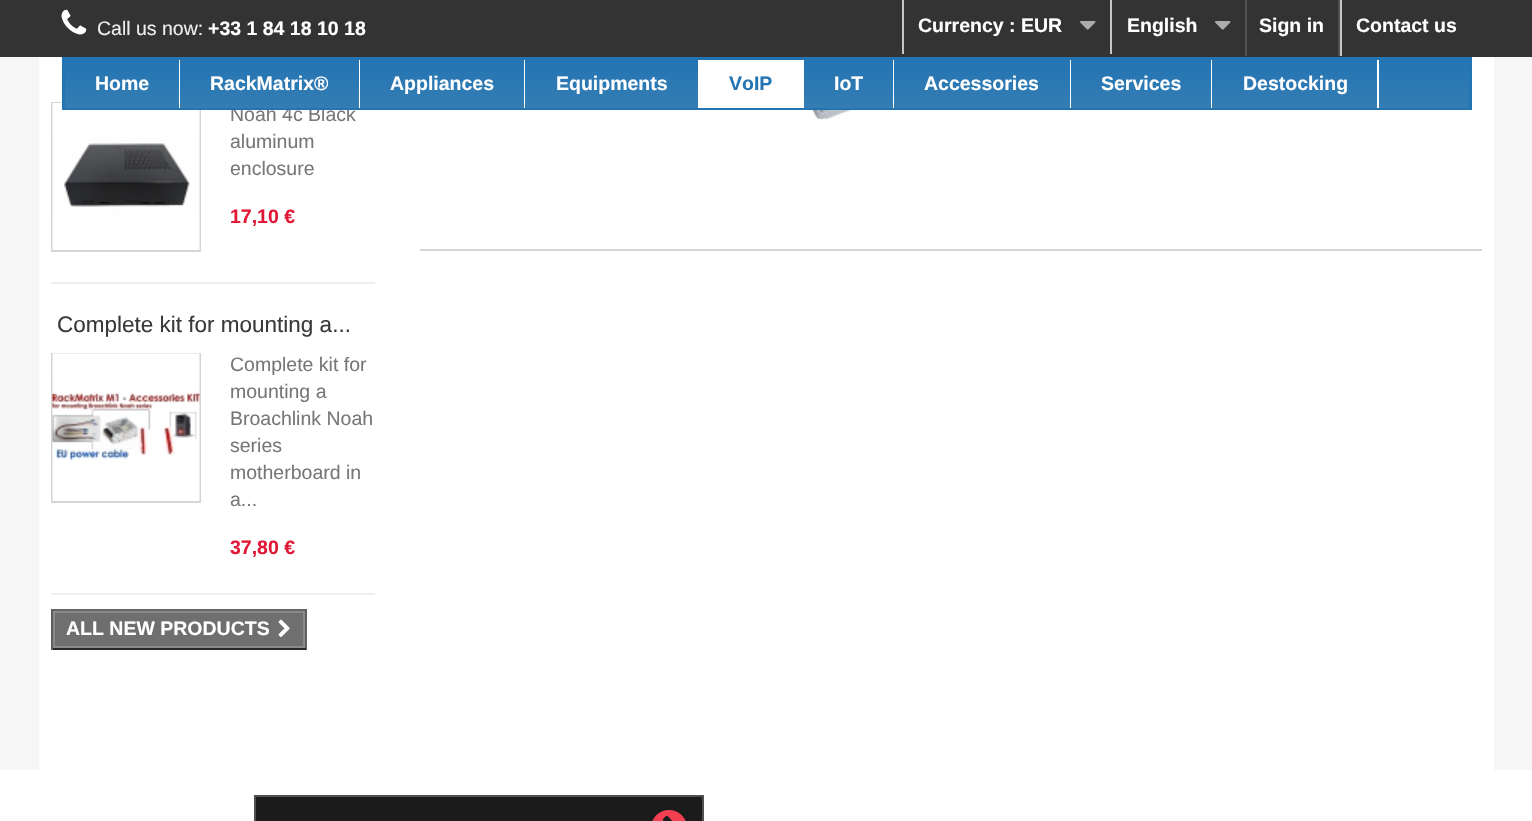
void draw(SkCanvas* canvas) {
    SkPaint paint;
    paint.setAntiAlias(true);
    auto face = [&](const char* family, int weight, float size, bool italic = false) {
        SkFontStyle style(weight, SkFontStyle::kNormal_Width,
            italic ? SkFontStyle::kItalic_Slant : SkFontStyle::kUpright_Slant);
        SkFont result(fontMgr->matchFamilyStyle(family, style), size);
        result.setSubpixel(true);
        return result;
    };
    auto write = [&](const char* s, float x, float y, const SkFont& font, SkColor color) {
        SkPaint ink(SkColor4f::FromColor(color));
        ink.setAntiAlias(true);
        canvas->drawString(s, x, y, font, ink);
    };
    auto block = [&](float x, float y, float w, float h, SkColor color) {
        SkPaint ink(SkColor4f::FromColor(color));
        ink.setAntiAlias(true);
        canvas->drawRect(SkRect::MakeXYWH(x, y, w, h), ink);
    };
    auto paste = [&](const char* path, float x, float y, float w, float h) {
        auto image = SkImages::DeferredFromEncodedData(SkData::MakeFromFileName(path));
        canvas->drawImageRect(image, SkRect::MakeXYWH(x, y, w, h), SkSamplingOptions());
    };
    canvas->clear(SK_ColorWHITE);
    block(0, 0, 1532, 57, SkColorSetRGB(51, 51, 51));
    paste("pic1.png", 61, 9, 26, 26);
    auto kFont1 = face("Liberation Sans", 400, 19.5f);
    write("Call us now:", 97, 35, kFont1, SkColorSetRGB(238, 238, 238));
    auto kFont2 = face("Liberation Sans", 700, 19.5f);
    write("+33 1 84 18 10 18", 208, 35, kFont2, SK_ColorWHITE);
    block(902, 0, 2, 54, SkColorSetRGB(198, 198, 198));
    write("Currency : EUR", 918, 32, kFont2, SK_ColorWHITE);
    paste("pic2.png", 1080, 21, 16, 9);
    block(1110, 0, 2, 54, SkColorSetRGB(198, 198, 198));
    write("English", 1127, 32, kFont2, SK_ColorWHITE);
    paste("pic2.png", 1215, 21, 16, 9);
    block(1338, 0, 2, 56, SkColorSetRGB(81, 81, 81));
    block(1245, 0, 2, 56, SkColorSetRGB(81, 81, 81));
    write("Sign in", 1259, 32, kFont2, SK_ColorWHITE);
    block(1340, 0, 2, 56, SkColorSetRGB(198, 198, 198));
    write("Contact us", 1356, 32, kFont2, SK_ColorWHITE);
    block(0, 57, 1532, 713, SkColorSetRGB(246, 246, 246));
    block(39, 57, 1455, 713, SK_ColorWHITE);
    block(62, 57, 1410, 3, SkColorSetRGB(35, 116, 179));
    paint.setStyle(SkPaint::kStroke_Style);
    paint.setStrokeWidth(2);
    paint.setColor(SkColorSetRGB(214, 212, 212));
    canvas->drawRect(SkRect::MakeXYWH(52, 103, 148, 148), paint);
    paste("pic3.png", 52, 103, 148, 147);
    write("Noah 4c Black", 230, 121, kFont1, SkColorSetRGB(119, 119, 119));
    paint.setStyle(SkPaint::kFill_Style);
    {
        const SkColor colors[] = {SkColorSetRGB(35, 116, 179), SkColorSetRGB(53, 125, 179)};
        const float stops[] = {0, 1};
        const SkPoint ends[] = {{65, 60}, {65, 108}};
        paint.setShader(SkGradientShader::MakeLinear(ends, colors, stops, 2, SkTileMode::kClamp));
        paint.setAlpha(255);
    }
    canvas->drawRect(SkRect::MakeXYWH(65, 60, 1404, 48), paint);
    block(1469, 60, 3, 50, SkColorSetRGB(35, 116, 179));
    block(62, 108, 1410, 2, SkColorSetRGB(35, 116, 179));
    block(62, 60, 3, 50, SkColorSetRGB(35, 116, 179));
    block(179, 60, 1, 48, SK_ColorWHITE);
    write("Home", 95, 90, kFont2, SK_ColorWHITE);
    block(359, 60, 1, 48, SK_ColorWHITE);
    write("RackMatrix®", 210, 90, kFont2, SK_ColorWHITE);
    block(524, 60, 1, 48, SK_ColorWHITE);
    write("Appliances", 390, 90, kFont2, SK_ColorWHITE);
    block(698, 60, 1, 48, SK_ColorWHITE);
    write("Equipments", 556, 90, kFont2, SK_ColorWHITE);
    block(699, 60, 105, 48, SK_ColorWHITE);
    write("VoIP", 729, 90, kFont2, SkColorSetRGB(35, 116, 179));
    block(893, 60, 1, 48, SK_ColorWHITE);
    write("IoT", 834, 90, kFont2, SK_ColorWHITE);
    block(1070, 60, 1, 48, SK_ColorWHITE);
    write("Accessories", 924, 90, kFont2, SK_ColorWHITE);
    block(1211, 60, 1, 48, SK_ColorWHITE);
    write("Services", 1101, 90, kFont2, SK_ColorWHITE);
    block(1377, 60, 2, 48, SK_ColorWHITE);
    write("Destocking", 1243, 90, kFont2, SK_ColorWHITE);
    block(51, 282, 324, 2, SkColorSetRGB(238, 238, 238));
    write("aluminum", 230, 148, kFont1, SkColorSetRGB(119, 119, 119));
    write("enclosure", 230, 175, kFont1, SkColorSetRGB(119, 119, 119));
    write("17,10 €", 230, 223, kFont2, SkColorSetRGB(225, 24, 54));
    block(51, 593, 324, 2, SkColorSetRGB(238, 238, 238));
    auto kFont3 = face("Liberation Sans", 400, 22.5f);
    write("Complete kit for mounting a...", 57, 332, kFont3, SkColorSetRGB(58, 57, 57));
    paint.setStyle(SkPaint::kStroke_Style);
    paint.setShader(nullptr);
    paint.setColor(SkColorSetRGB(214, 212, 212));
    canvas->drawRect(SkRect::MakeXYWH(52, 354, 148, 148), paint);
    paste("pic4.png", 52, 353, 148, 148);
    write("Complete kit for", 230, 371, kFont1, SkColorSetRGB(119, 119, 119));
    write("mounting a", 230, 398, kFont1, SkColorSetRGB(119, 119, 119));
    write("Broachlink Noah", 230, 425, kFont1, SkColorSetRGB(119, 119, 119));
    write("series", 230, 452, kFont1, SkColorSetRGB(119, 119, 119));
    write("motherboard in", 230, 479, kFont1, SkColorSetRGB(119, 119, 119));
    write("a...", 230, 506, kFont1, SkColorSetRGB(119, 119, 119));
    write("37,80 €", 230, 554, kFont2, SkColorSetRGB(225, 24, 54));
    block(51, 609, 255, 2, SkColorSetRGB(102, 102, 102));
    block(305, 609, 2, 41, SkColorSetRGB(95, 95, 95));
    block(51, 648, 255, 2, SkColorSetRGB(41, 41, 41));
    block(51, 609, 2, 41, SkColorSetRGB(95, 95, 95));
    paint.setStyle(SkPaint::kFill_Style);
    paint.setColor(SkColorSetRGB(111, 111, 111));
    canvas->drawRect(SkRect::MakeXYWH(54, 612, 250, 35), paint);
    paint.setStyle(SkPaint::kStroke_Style);
    paint.setColor(SkColorSetRGB(139, 138, 138));
    canvas->drawRect(SkRect::MakeXYWH(54, 612, 250, 35), paint);
    write("ALL NEW PRODUCTS", 66, 635, kFont2, SK_ColorWHITE);
    paste("pic5.png", 278, 619, 12, 18);
    paste("pic6.png", 772, 110, 351, 10);
    block(420, 249, 1062, 2, SkColorSetRGB(214, 212, 212));
    paint.setStyle(SkPaint::kFill_Style);
    paint.setColor(SkColorSetRGB(27, 27, 27));
    canvas->drawRect(SkRect::MakeXYWH(255, 796, 448, 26), paint);
    paint.setStyle(SkPaint::kStroke_Style);
    paint.setColor(SkColorSetRGB(81, 81, 81));
    canvas->drawRect(SkRect::MakeXYWH(255, 796, 448, 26), paint);
    paste("pic7.png", 652, 810, 34, 11);
}
